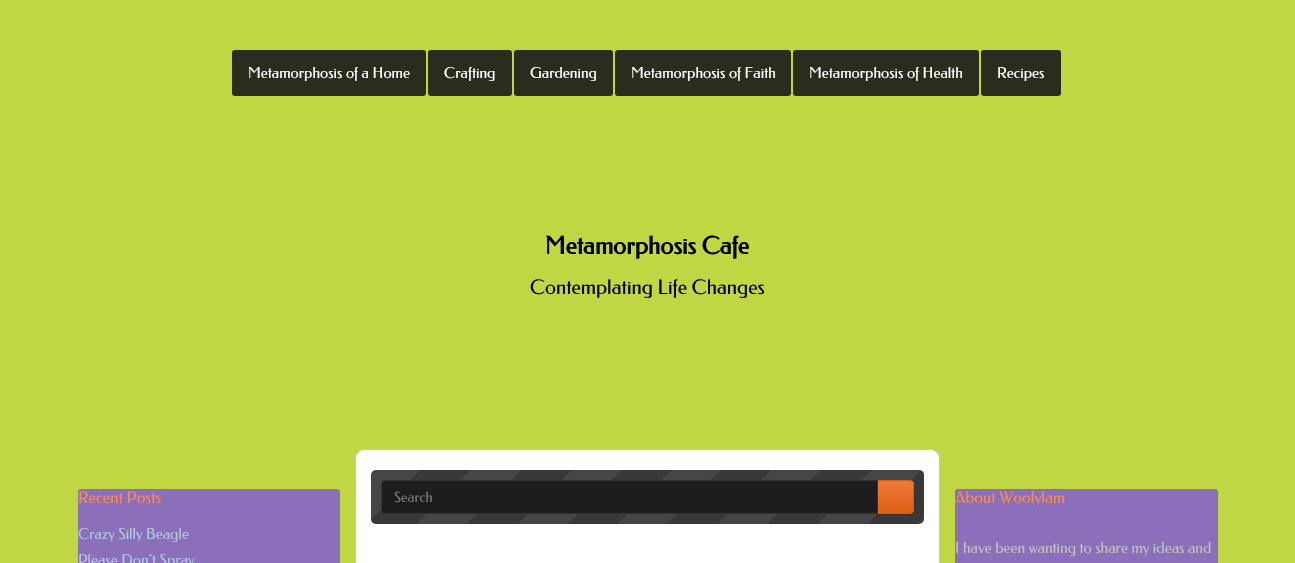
void draw(SkCanvas* canvas) {
    SkPaint paint;
    paint.setAntiAlias(true);
    auto face = [&](const char* family, int weight, float size, bool italic = false) {
        SkFontStyle style(weight, SkFontStyle::kNormal_Width,
            italic ? SkFontStyle::kItalic_Slant : SkFontStyle::kUpright_Slant);
        SkFont result(fontMgr->matchFamilyStyle(family, style), size);
        result.setSubpixel(true);
        return result;
    };
    auto write = [&](const char* s, float x, float y, const SkFont& font, SkColor color) {
        SkPaint ink(SkColor4f::FromColor(color));
        ink.setAntiAlias(true);
        canvas->drawString(s, x, y, font, ink);
    };
    auto card = [&](float x, float y, float w, float h, float radius, SkColor color) {
        SkPaint ink(SkColor4f::FromColor(color));
        ink.setAntiAlias(true);
        canvas->drawRoundRect(SkRect::MakeXYWH(x, y, w, h), radius, radius, ink);
    };
    canvas->clear(SkColorSetRGB(192, 214, 66));
    card(232, 50, 194, 46, 3, SkColorSetRGB(42, 44, 29));
    auto kFont1 = face("Federo", 400, 15);
    write("Metamorphosis of a Home", 248, 78, kFont1, SK_ColorWHITE);
    card(428, 50, 84, 46, 3, SkColorSetRGB(42, 44, 29));
    write("Crafting", 444, 78, kFont1, SK_ColorWHITE);
    card(514, 50, 99, 46, 3, SkColorSetRGB(42, 44, 29));
    write("Gardening", 530, 78, kFont1, SK_ColorWHITE);
    card(615, 50, 176, 46, 3, SkColorSetRGB(42, 44, 29));
    write("Metamorphosis of Faith", 631, 78, kFont1, SK_ColorWHITE);
    card(793, 50, 186, 46, 3, SkColorSetRGB(42, 44, 29));
    write("Metamorphosis of Health", 809, 78, kFont1, SK_ColorWHITE);
    card(981, 50, 80, 46, 3, SkColorSetRGB(42, 44, 29));
    write("Recipes", 997, 78, kFont1, SK_ColorWHITE);
    auto kFont2 = face("Federo", 700, 24);
    write("Metamorphosis Cafe", 545, 254, kFont2, SK_ColorBLACK);
    auto kFont3 = face("Federo", 400, 20);
    write("Contemplating Life Changes", 530, 294, kFont3, SK_ColorBLACK);
    card(78, 489, 262, 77, 3, SkColorSetRGB(140, 111, 186));
    auto kFont4 = face("Federo", 400, 16);
    write("Recent Posts", 78, 503, kFont4, SkColorSetRGB(244, 138, 85));
    write("Crazy Silly Beagle", 78, 539, kFont1, SkColorSetRGB(176, 196, 222));
    write("Please Don’t Spray", 78, 565, kFont1, SkColorSetRGB(176, 196, 222));
    paint.setColor(SK_ColorWHITE);
    canvas->drawPath(SkPathBuilder().moveTo(365, 449).lineTo(930, 449).cubicTo(935.5f, 449, 940, 453.5f, 940, 459).lineTo(940, 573).lineTo(355, 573).lineTo(355, 459).cubicTo(355, 453.5f, 359.5f, 449, 365, 449).close().detach(), paint);
    paint.setColor(SkColorSetRGB(197, 197, 197));
    canvas->drawPath(SkPathBuilder(SkPathFillType::kEvenOdd).moveTo(365, 449).lineTo(930, 449).cubicTo(936, 449, 940, 453, 940, 459).lineTo(940, 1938).lineTo(355, 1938).lineTo(355, 459).cubicTo(355, 453, 359, 449, 365, 449).close().moveTo(365, 450).lineTo(930, 450).cubicTo(935, 450, 939, 454, 939, 459).lineTo(939, 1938).lineTo(356, 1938).lineTo(356, 459).cubicTo(356, 454, 360, 450, 365, 450).close().detach(), paint);
    card(371, 470, 553, 54, 5, SkColorSetRGB(69, 69, 69));
    {
        const SkColor colors[] = {SkColorSetARGB(77, 25, 26, 28), SkColorSetARGB(0, 25, 26, 28), SkColorSetARGB(0, 25, 26, 28), SkColorSetARGB(77, 25, 26, 28), SkColorSetARGB(77, 25, 26, 28), SkColorSetARGB(0, 25, 26, 28), SkColorSetARGB(0, 0, 0, 0)};
        const float stops[] = {0.25f, 0.25f, 0.5f, 0.5f, 0.75f, 0.75f, 1};
        const SkPoint ends[] = {{471, 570}, {371, 470}};
        paint.setShader(SkGradientShader::MakeLinear(ends, colors, stops, 7, SkTileMode::kClamp));
        paint.setAlpha(255);
    }
    canvas->drawPath(SkPathBuilder().moveTo(376, 470).lineTo(471, 470).lineTo(471, 524).lineTo(376, 524).cubicTo(373, 524, 371, 522, 371, 519).lineTo(371, 475).cubicTo(371, 472, 373, 470, 376, 470).close().detach(), paint);
    {
        const SkColor colors[] = {SkColorSetRGB(56, 56, 57), SkColorSetRGB(69, 69, 69), SkColorSetRGB(69, 69, 69), SkColorSetRGB(56, 56, 57), SkColorSetRGB(56, 56, 57), SkColorSetRGB(69, 69, 69), SkColorSetRGB(69, 69, 69)};
        const float stops[] = {0.25f, 0.25f, 0.5f, 0.5f, 0.75f, 0.75f, 1};
        const SkPoint ends[] = {{571, 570}, {471, 470}};
        paint.setShader(SkGradientShader::MakeLinear(ends, colors, stops, 7, SkTileMode::kClamp));
        paint.setAlpha(255);
    }
    canvas->drawRect(SkRect::MakeXYWH(471, 470, 100, 54), paint);
    {
        const SkColor colors[] = {SkColorSetRGB(56, 56, 57), SkColorSetRGB(69, 69, 69), SkColorSetRGB(69, 69, 69), SkColorSetRGB(56, 56, 57), SkColorSetRGB(56, 56, 57), SkColorSetRGB(69, 69, 69), SkColorSetRGB(69, 69, 69)};
        const float stops[] = {0.25f, 0.25f, 0.5f, 0.5f, 0.75f, 0.75f, 1};
        const SkPoint ends[] = {{671, 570}, {571, 470}};
        paint.setShader(SkGradientShader::MakeLinear(ends, colors, stops, 7, SkTileMode::kClamp));
        paint.setAlpha(255);
    }
    canvas->drawRect(SkRect::MakeXYWH(571, 470, 100, 54), paint);
    {
        const SkColor colors[] = {SkColorSetRGB(56, 56, 57), SkColorSetRGB(69, 69, 69), SkColorSetRGB(69, 69, 69), SkColorSetRGB(56, 56, 57), SkColorSetRGB(56, 56, 57), SkColorSetRGB(69, 69, 69), SkColorSetRGB(69, 69, 69)};
        const float stops[] = {0.25f, 0.25f, 0.5f, 0.5f, 0.75f, 0.75f, 1};
        const SkPoint ends[] = {{771, 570}, {671, 470}};
        paint.setShader(SkGradientShader::MakeLinear(ends, colors, stops, 7, SkTileMode::kClamp));
        paint.setAlpha(255);
    }
    canvas->drawRect(SkRect::MakeXYWH(671, 470, 100, 54), paint);
    {
        const SkColor colors[] = {SkColorSetRGB(56, 56, 57), SkColorSetRGB(69, 69, 69), SkColorSetRGB(69, 69, 69), SkColorSetRGB(56, 56, 57), SkColorSetRGB(56, 56, 57), SkColorSetRGB(69, 69, 69), SkColorSetRGB(69, 69, 69)};
        const float stops[] = {0.25f, 0.25f, 0.5f, 0.5f, 0.75f, 0.75f, 1};
        const SkPoint ends[] = {{871, 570}, {771, 470}};
        paint.setShader(SkGradientShader::MakeLinear(ends, colors, stops, 7, SkTileMode::kClamp));
        paint.setAlpha(255);
    }
    canvas->drawRect(SkRect::MakeXYWH(771, 470, 100, 54), paint);
    {
        const SkColor colors[] = {SkColorSetARGB(77, 25, 26, 28), SkColorSetARGB(0, 25, 26, 28), SkColorSetARGB(0, 25, 26, 28), SkColorSetARGB(77, 25, 26, 28), SkColorSetARGB(77, 25, 26, 28), SkColorSetARGB(0, 25, 26, 28), SkColorSetARGB(0, 0, 0, 0)};
        const float stops[] = {0.25f, 0.25f, 0.5f, 0.5f, 0.75f, 0.75f, 1};
        const SkPoint ends[] = {{971, 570}, {871, 470}};
        paint.setShader(SkGradientShader::MakeLinear(ends, colors, stops, 7, SkTileMode::kClamp));
        paint.setAlpha(255);
    }
    canvas->drawPath(SkPathBuilder().moveTo(871, 470).lineTo(919, 470).cubicTo(922, 470, 924, 472, 924, 475).lineTo(924, 519).cubicTo(924, 522, 922, 524, 919, 524).lineTo(871, 524).close().detach(), paint);
    paint.setShader(nullptr);
    paint.setColor(SkColorSetRGB(48, 48, 48));
    canvas->drawPath(SkPathBuilder().moveTo(877, 514).lineTo(877, 515).lineTo(910, 515).cubicTo(912, 515, 914, 513, 914, 511).lineTo(914, 510).cubicTo(914, 512, 912, 514, 910, 514).close().detach(), paint);
    canvas->save();
    canvas->clipPath(SkPathBuilder().moveTo(877, 480).lineTo(910, 480).cubicTo(912, 480, 914, 482, 914, 484).lineTo(914, 510).cubicTo(914, 512, 912, 514, 910, 514).lineTo(877, 514).close().detach(), true);
    {
        const SkColor colors[] = {SkColorSetRGB(237, 123, 57), SkColorSetRGB(223, 94, 20)};
        const float stops[] = {0, 1};
        const SkPoint ends[] = {{896, 481}, {896, 513}};
        paint.setShader(SkGradientShader::MakeLinear(ends, colors, stops, 2, SkTileMode::kClamp));
        paint.setAlpha(255);
    }
    canvas->drawRect(SkRect::MakeXYWH(878, 481, 36, 32), paint);
    canvas->restore();
    paint.setShader(nullptr);
    paint.setColor(SkColorSetRGB(234, 119, 52));
    canvas->drawPath(SkPathBuilder().moveTo(878, 482).lineTo(910, 482).cubicTo(912, 482, 913, 483, 913, 485).lineTo(913, 484).cubicTo(913, 482.5f, 911.5f, 481, 910, 481).lineTo(878, 481).close().detach(), paint);
    paint.setStyle(SkPaint::kStroke_Style);
    paint.setStrokeWidth(1);
    paint.setColor(SkColorSetRGB(211, 95, 29));
    canvas->drawPath(SkPathBuilder().moveTo(877.5f, 480.5f).lineTo(910, 480.5f).cubicTo(912, 480.5f, 913.5f, 482, 913.5f, 484).lineTo(913.5f, 510).cubicTo(913.5f, 512, 912, 513.5f, 910, 513.5f).lineTo(877.5f, 513.5f).close().detach(), paint);
    paint.setStyle(SkPaint::kFill_Style);
    paint.setColor(SkColorSetRGB(29, 29, 29));
    canvas->drawPath(SkPathBuilder().moveTo(385, 480.5f).lineTo(877.5f, 480.5f).lineTo(877.5f, 513.5f).lineTo(385, 513.5f).cubicTo(383, 513.5f, 381.5f, 512, 381.5f, 510).lineTo(381.5f, 484).cubicTo(381.5f, 482, 383, 480.5f, 385, 480.5f).close().detach(), paint);
    paint.setStyle(SkPaint::kStroke_Style);
    paint.setColor(SkColorSetRGB(51, 51, 51));
    canvas->drawPath(SkPathBuilder().moveTo(385, 480.5f).lineTo(877.5f, 480.5f).lineTo(877.5f, 513.5f).lineTo(385, 513.5f).cubicTo(383, 513.5f, 381.5f, 512, 381.5f, 510).lineTo(381.5f, 484).cubicTo(381.5f, 482, 383, 480.5f, 385, 480.5f).close().detach(), paint);
    auto kFont5 = face("Federo", 400, 14);
    write("Search", 394, 502, kFont5, SkColorSetRGB(119, 119, 119));
    card(955, 489, 263, 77, 3, SkColorSetRGB(140, 111, 186));
    write("About Woolylam", 955, 503, kFont4, SkColorSetRGB(244, 138, 85));
    write("I have been wanting to share my ideas and", 955, 553, kFont1, SkColorSetRGB(191, 191, 191));
}
